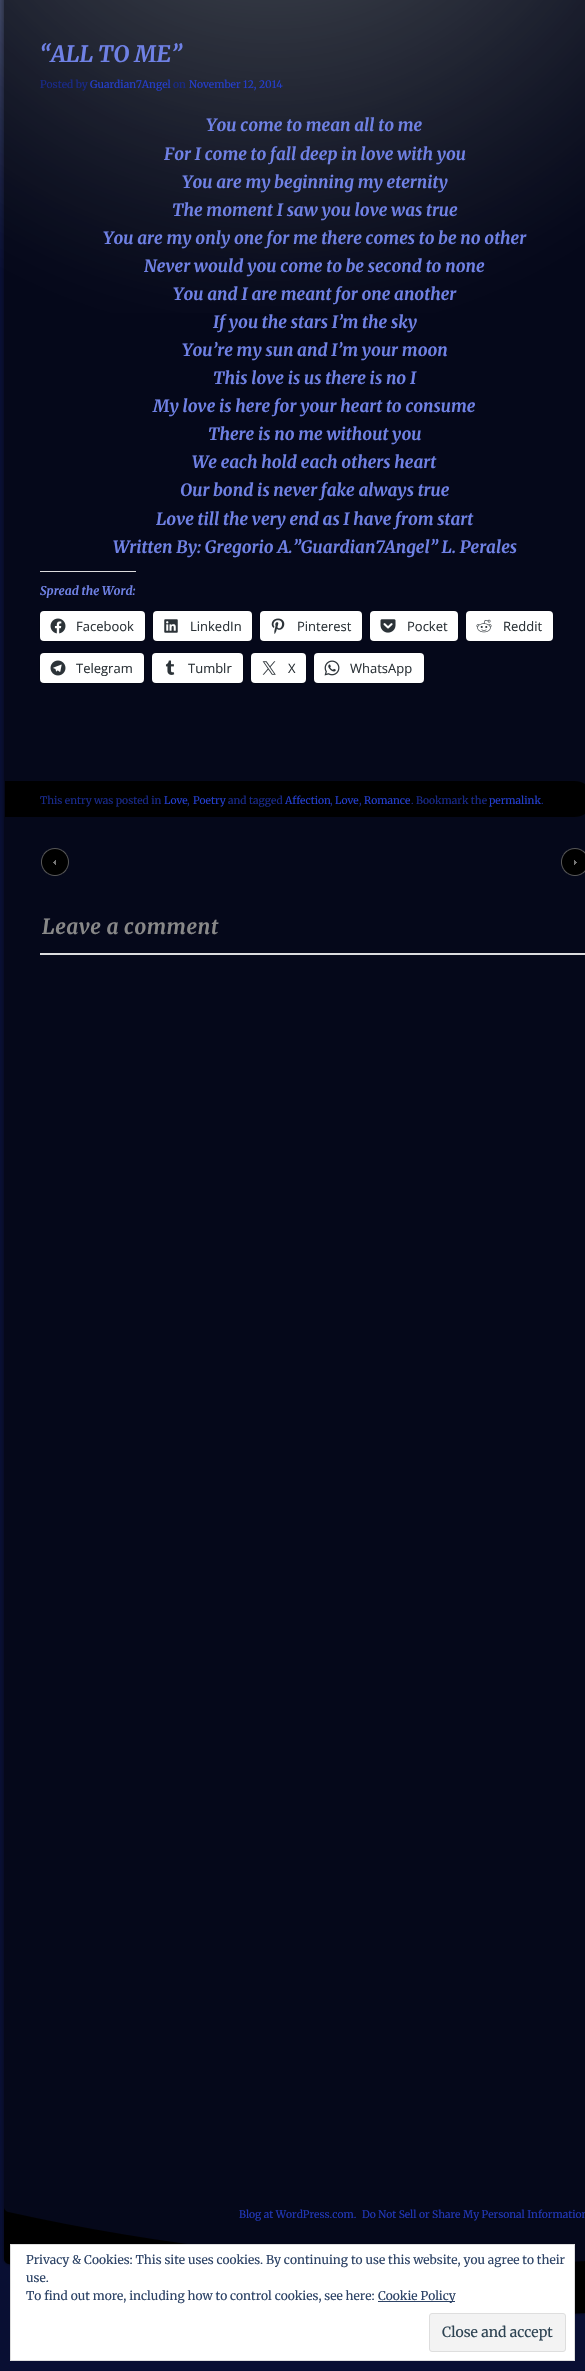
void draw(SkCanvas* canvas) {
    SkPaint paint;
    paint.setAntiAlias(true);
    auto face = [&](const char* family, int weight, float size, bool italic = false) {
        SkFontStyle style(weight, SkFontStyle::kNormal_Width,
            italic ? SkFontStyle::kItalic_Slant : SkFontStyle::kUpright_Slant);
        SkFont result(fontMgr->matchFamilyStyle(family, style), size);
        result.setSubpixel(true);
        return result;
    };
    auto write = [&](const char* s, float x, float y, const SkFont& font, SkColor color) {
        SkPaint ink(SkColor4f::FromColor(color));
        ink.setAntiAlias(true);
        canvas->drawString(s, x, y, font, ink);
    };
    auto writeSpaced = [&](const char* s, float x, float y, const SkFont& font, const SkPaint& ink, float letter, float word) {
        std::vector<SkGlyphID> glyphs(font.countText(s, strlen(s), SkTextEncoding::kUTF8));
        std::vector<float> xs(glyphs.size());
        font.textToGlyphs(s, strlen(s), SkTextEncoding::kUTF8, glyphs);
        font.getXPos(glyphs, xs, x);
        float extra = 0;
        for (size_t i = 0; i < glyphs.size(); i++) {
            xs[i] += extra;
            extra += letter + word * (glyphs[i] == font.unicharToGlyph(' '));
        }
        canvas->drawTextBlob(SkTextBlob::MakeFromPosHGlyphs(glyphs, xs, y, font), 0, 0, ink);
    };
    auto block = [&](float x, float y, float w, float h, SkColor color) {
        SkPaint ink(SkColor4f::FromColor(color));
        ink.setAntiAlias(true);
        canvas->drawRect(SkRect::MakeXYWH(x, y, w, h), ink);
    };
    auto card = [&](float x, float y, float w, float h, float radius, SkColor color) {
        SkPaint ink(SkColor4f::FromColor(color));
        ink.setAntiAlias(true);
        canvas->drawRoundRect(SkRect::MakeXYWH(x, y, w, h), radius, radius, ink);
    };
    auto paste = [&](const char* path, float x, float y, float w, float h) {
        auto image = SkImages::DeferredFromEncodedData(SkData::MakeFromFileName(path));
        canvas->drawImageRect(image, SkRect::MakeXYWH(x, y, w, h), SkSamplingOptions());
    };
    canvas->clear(SkColorSetRGB(9, 15, 51));
    paste("pic1.png", 0, 0, 585, 313);
    paste("pic2.png", 1, 0, 584, 2207);
    auto kFont1 = face("Merriweather", 700, 22.5f, true);
    write("“ALL TO ME”", 40, 62, kFont1, SkColorSetRGB(111, 129, 229));
    auto kFont2 = face("Merriweather", 400, 10.3f);
    write("Posted by", 40, 88, kFont2, SkColorSetRGB(24, 41, 138));
    write("Guardian7Angel", 90, 88, kFont2, SkColorSetRGB(35, 61, 203));
    write("on", 173, 88, kFont2, SkColorSetRGB(24, 41, 138));
    write("November 12, 2014", 189, 88, kFont2, SkColorSetRGB(35, 61, 203));
    auto kFont3 = face("Merriweather", 700, 16.95f, true);
    write("You come to mean all to me", 206, 131, kFont3, SkColorSetRGB(111, 129, 229));
    write("For I come to fall deep in love with you", 164, 160, kFont3, SkColorSetRGB(111, 129, 229));
    write("You are my beginning my eternity", 182, 188, kFont3, SkColorSetRGB(111, 129, 229));
    write("The moment I saw you love was true", 172, 216, kFont3, SkColorSetRGB(111, 129, 229));
    write("You are my only one for me there comes to be no other", 103, 244, kFont3, SkColorSetRGB(111, 129, 229));
    write("Never would you come to be second to none", 144, 272, kFont3, SkColorSetRGB(111, 129, 229));
    write("You and I are meant for one another", 173, 300, kFont3, SkColorSetRGB(111, 129, 229));
    write("If you the stars I’m the sky", 213, 328, kFont3, SkColorSetRGB(111, 129, 229));
    write("You’re my sun and I’m your moon", 182, 356, kFont3, SkColorSetRGB(111, 129, 229));
    write("This love is us there is no I", 213, 384, kFont3, SkColorSetRGB(111, 129, 229));
    write("My love is here for your heart to consume", 153, 412, kFont3, SkColorSetRGB(111, 129, 229));
    write("There is no me without you", 208, 440, kFont3, SkColorSetRGB(111, 129, 229));
    write("We each hold each others heart", 192, 468, kFont3, SkColorSetRGB(111, 129, 229));
    write("Our bond is never fake always true", 180, 496, kFont3, SkColorSetRGB(111, 129, 229));
    write("Love till the very end as I have from start", 156, 525, kFont3, SkColorSetRGB(111, 129, 229));
    write("Written By: Gregorio A.”Guardian7Angel” L. Perales", 113, 553, kFont3, SkColorSetRGB(111, 129, 229));
    block(40, 571, 96, 1, SkColorSetRGB(220, 220, 222));
    auto kFont4 = face("Merriweather", 700, 12, true);
    write("Spread the Word:", 40, 595, kFont4, SkColorSetRGB(111, 129, 229));
    paint.setStyle(SkPaint::kStroke_Style);
    paint.setStrokeWidth(1);
    paint.setColor(SkColorSetRGB(4, 7, 22));
    canvas->drawRoundRect(SkRect::MakeXYWH(39.5f, 610.5f, 106, 31), 4.5f, 4.5f, paint);
    card(40, 611, 105, 30, 4, SK_ColorWHITE);
    paste("pic3.png", 50, 618, 16, 16);
    auto kFont5 = face("Open Sans", 400, 13);
    write("Facebook", 76, 631, kFont5, SkColorSetRGB(44, 51, 56));
    canvas->drawRoundRect(SkRect::MakeXYWH(152.5f, 610.5f, 100, 31), 4.5f, 4.5f, paint);
    card(153, 611, 99, 30, 4, SK_ColorWHITE);
    paste("pic4.png", 164, 619, 14, 14);
    write("LinkedIn", 190, 631, kFont5, SkColorSetRGB(44, 51, 56));
    canvas->drawRoundRect(SkRect::MakeXYWH(259.5f, 610.5f, 103, 31), 4.5f, 4.5f, paint);
    card(260, 611, 102, 30, 4, SK_ColorWHITE);
    paste("pic5.png", 271, 618, 14, 16);
    write("Pinterest", 297, 631, kFont5, SkColorSetRGB(44, 51, 56));
    canvas->drawRoundRect(SkRect::MakeXYWH(369.5f, 610.5f, 89, 31), 4.5f, 4.5f, paint);
    card(370, 611, 88, 30, 4, SK_ColorWHITE);
    paste("pic6.png", 380, 619, 16, 14);
    write("Pocket", 407, 631, kFont5, SkColorSetRGB(44, 51, 56));
    canvas->drawRoundRect(SkRect::MakeXYWH(465.5f, 610.5f, 88, 31), 4.5f, 4.5f, paint);
    card(466, 611, 87, 30, 4, SK_ColorWHITE);
    paste("pic7.png", 476, 619, 16, 14);
    write("Reddit", 503, 631, kFont5, SkColorSetRGB(44, 51, 56));
    canvas->drawRoundRect(SkRect::MakeXYWH(39.5f, 652.5f, 105, 31), 4.5f, 4.5f, paint);
    card(40, 653, 104, 30, 4, SK_ColorWHITE);
    paste("pic8.png", 50, 660, 16, 16);
    write("Telegram", 76, 673, kFont5, SkColorSetRGB(44, 51, 56));
    canvas->drawRoundRect(SkRect::MakeXYWH(151.5f, 652.5f, 92, 31), 4.5f, 4.5f, paint);
    card(152, 653, 91, 30, 4, SK_ColorWHITE);
    paste("pic9.png", 165, 660, 10, 15);
    write("Tumblr", 188, 673, kFont5, SkColorSetRGB(44, 51, 56));
    canvas->drawRoundRect(SkRect::MakeXYWH(250.5f, 652.5f, 56, 31), 4.5f, 4.5f, paint);
    card(251, 653, 55, 30, 4, SK_ColorWHITE);
    paste("pic10.png", 262, 661, 14, 14);
    write("X", 288, 673, kFont5, SkColorSetRGB(44, 51, 56));
    canvas->drawRoundRect(SkRect::MakeXYWH(313.5f, 652.5f, 111, 31), 4.5f, 4.5f, paint);
    card(314, 653, 110, 30, 4, SK_ColorWHITE);
    paste("pic11.png", 324, 660, 16, 16);
    write("WhatsApp", 350, 673, kFont5, SkColorSetRGB(44, 51, 56));
    paint.setStyle(SkPaint::kFill_Style);
    paint.setColor(SK_ColorBLACK);
    canvas->drawPath(SkPathBuilder().moveTo(5, 781).lineTo(575, 781).cubicTo(585, 781, 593, 789, 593, 799).cubicTo(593, 809, 585, 817, 575, 817).lineTo(5, 817).close().detach(), paint);
    write("This entry was posted in", 40, 804, kFont2, SkColorSetRGB(24, 41, 138));
    write("Love", 164, 804, kFont2, SkColorSetRGB(35, 61, 203));
    write(",", 187, 804, kFont2, SkColorSetRGB(24, 41, 138));
    write("Poetry", 193, 804, kFont2, SkColorSetRGB(35, 61, 203));
    write("and tagged", 228, 804, kFont2, SkColorSetRGB(24, 41, 138));
    write("Affection", 285, 804, kFont2, SkColorSetRGB(35, 61, 203));
    write(",", 330, 804, kFont2, SkColorSetRGB(24, 41, 138));
    write("Love", 335, 804, kFont2, SkColorSetRGB(35, 61, 203));
    write(",", 359, 804, kFont2, SkColorSetRGB(24, 41, 138));
    write("Romance", 364, 804, kFont2, SkColorSetRGB(35, 61, 203));
    write(". Bookmark the", 411, 804, kFont2, SkColorSetRGB(24, 41, 138));
    write("permalink", 489, 804, kFont2, SkColorSetRGB(35, 61, 203));
    write(".", 541, 804, kFont2, SkColorSetRGB(24, 41, 138));
    paste("pic12.png", 41, 848, 28, 28);
    paste("pic13.png", 561, 848, 24, 28);
    auto kFont6 = face("Merriweather", 700, 20.75f, true);
    paint.setColor(SkColorSetRGB(136, 136, 136));
    writeSpaced("Leave a comment", 42, 934, kFont6, paint, 0.5f, 0);
    block(40, 953, 545, 2, SkColorSetRGB(220, 220, 222));
    paste("pic14.png", 2, 2207, 583, 110);
    write("Blog at WordPress.com.", 239, 2218, kFont2, SkColorSetRGB(32, 54, 182));
    write("Do Not Sell or Share My Personal Information", 362, 2218, kFont2, SkColorSetRGB(32, 54, 182));
    paint.setColor(SK_ColorWHITE);
    canvas->drawRect(SkRect::MakeXYWH(10.5f, 2244.5f, 564, 116), paint);
    paint.setStyle(SkPaint::kStroke_Style);
    paint.setColor(SkColorSetRGB(222, 222, 222));
    canvas->drawRect(SkRect::MakeXYWH(10.5f, 2244.5f, 564, 116), paint);
    auto kFont7 = face("Merriweather", 400, 12);
    write("Privacy & Cookies: This site uses cookies. By continuing to use this website, you agree to their", 26, 2264, kFont7, SkColorSetRGB(46, 68, 103));
    write("use.", 26, 2282, kFont7, SkColorSetRGB(46, 68, 103));
    write("To find out more, including how to control cookies, see here:", 26, 2300, kFont7, SkColorSetRGB(46, 68, 103));
    block(378, 2301, 77, 1, SkColorSetRGB(46, 68, 103));
    write("Cookie Policy", 378, 2300, kFont7, SkColorSetRGB(46, 68, 103));
    paint.setStyle(SkPaint::kFill_Style);
    paint.setColor(SkColorSetRGB(243, 243, 243));
    canvas->drawRoundRect(SkRect::MakeXYWH(429.5f, 2313.5f, 136, 38), 2.5f, 2.5f, paint);
    paint.setStyle(SkPaint::kStroke_Style);
    paint.setColor(SkColorSetRGB(222, 222, 222));
    canvas->drawRoundRect(SkRect::MakeXYWH(429.5f, 2313.5f, 136, 38), 2.5f, 2.5f, paint);
    auto kFont8 = face("Merriweather", 400, 14);
    write("Close and accept", 442, 2337, kFont8, SkColorSetRGB(46, 68, 83));
}
